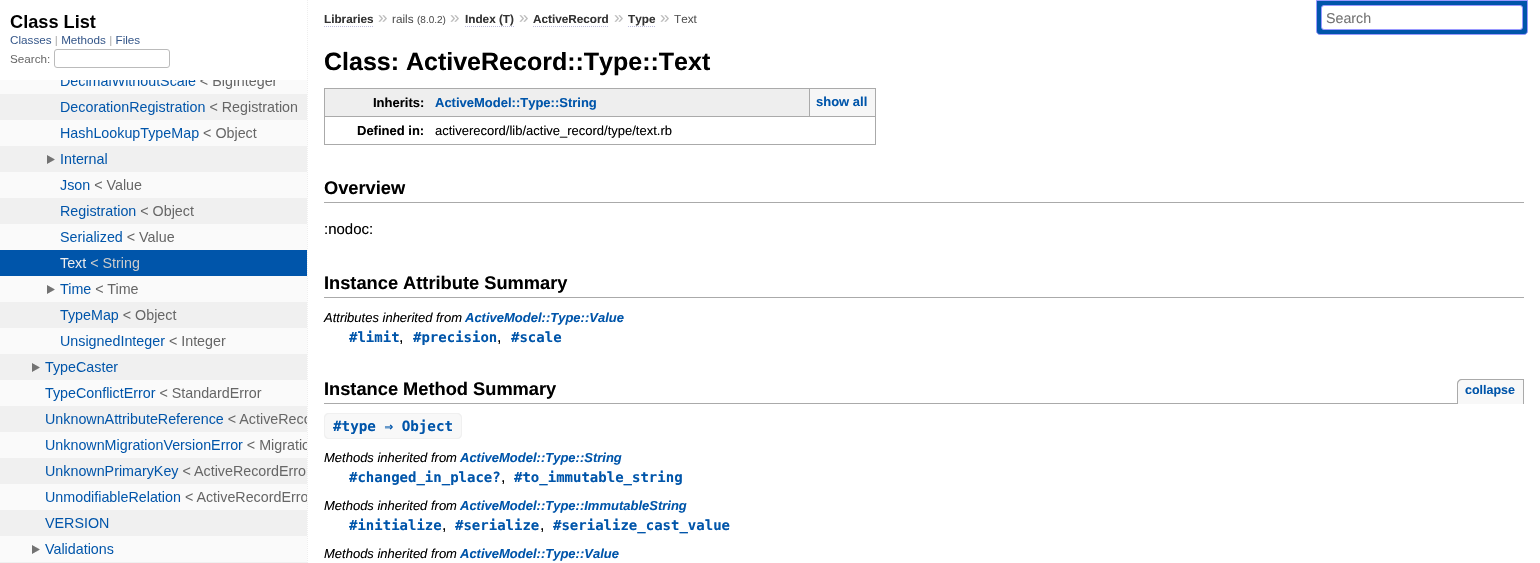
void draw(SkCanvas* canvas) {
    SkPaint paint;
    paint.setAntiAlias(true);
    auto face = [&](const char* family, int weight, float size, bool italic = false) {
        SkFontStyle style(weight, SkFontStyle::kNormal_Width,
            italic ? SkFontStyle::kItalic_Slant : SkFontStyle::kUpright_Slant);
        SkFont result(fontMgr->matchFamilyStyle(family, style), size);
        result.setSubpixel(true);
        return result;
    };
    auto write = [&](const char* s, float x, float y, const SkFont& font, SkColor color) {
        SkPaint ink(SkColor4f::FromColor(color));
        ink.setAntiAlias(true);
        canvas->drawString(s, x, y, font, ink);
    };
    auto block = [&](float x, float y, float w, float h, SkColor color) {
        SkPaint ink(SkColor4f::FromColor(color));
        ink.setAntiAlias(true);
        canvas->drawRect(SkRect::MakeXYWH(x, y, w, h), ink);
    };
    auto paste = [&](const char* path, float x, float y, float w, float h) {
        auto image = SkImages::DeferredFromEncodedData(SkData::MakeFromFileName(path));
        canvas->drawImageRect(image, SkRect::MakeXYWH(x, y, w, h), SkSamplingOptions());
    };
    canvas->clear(SK_ColorWHITE);
    paint.setStyle(SkPaint::kStroke_Style);
    paint.setStrokeWidth(1);
    paint.setColor(SkColorSetRGB(238, 238, 238));
    paint.setPathEffect(SkDashPathEffect::Make({{1, 1}}, 0));
    canvas->drawPath(SkPathBuilder().moveTo(307.5f, 0).lineTo(307.5f, 563).detach(), paint);
    paint.setPathEffect(nullptr);
    paste("pic1.png", 0, 15, 307, 548);
    auto kFont1 = face("Liberation Sans", 700, 11.75f);
    write("Libraries", 324, 23, kFont1, SkColorSetRGB(51, 51, 51));
    paint.setColor(SkColorSetRGB(187, 187, 221));
    paint.setPathEffect(SkDashPathEffect::Make({{1, 1}}, 0));
    canvas->drawPath(SkPathBuilder().moveTo(324, 26.5f).lineTo(374, 26.5f).detach(), paint);
    paint.setPathEffect(nullptr);
    auto kFont2 = face("Liberation Sans", 400, 17);
    write("»", 378, 23, kFont2, SkColorSetRGB(187, 187, 187));
    auto kFont3 = face("Liberation Sans", 400, 11.75f);
    write("rails", 392, 23, kFont3, SkColorSetRGB(85, 85, 85));
    auto kFont4 = face("Liberation Sans", 400, 10);
    write("(8.0.2)", 417, 23, kFont4, SkColorSetRGB(85, 85, 85));
    write("»", 450, 23, kFont2, SkColorSetRGB(187, 187, 187));
    write("Index (T)", 465, 23, kFont1, SkColorSetRGB(51, 51, 51));
    paint.setPathEffect(SkDashPathEffect::Make({{1, 1}}, 0));
    canvas->drawPath(SkPathBuilder().moveTo(465, 26.5f).lineTo(514, 26.5f).detach(), paint);
    paint.setPathEffect(nullptr);
    write("»", 519, 23, kFont2, SkColorSetRGB(187, 187, 187));
    write("ActiveRecord", 533, 23, kFont1, SkColorSetRGB(51, 51, 51));
    paint.setPathEffect(SkDashPathEffect::Make({{1, 1}}, 0));
    canvas->drawPath(SkPathBuilder().moveTo(533, 26.5f).lineTo(609, 26.5f).detach(), paint);
    paint.setPathEffect(nullptr);
    write("»", 614, 23, kFont2, SkColorSetRGB(187, 187, 187));
    write("Type", 628, 23, kFont1, SkColorSetRGB(51, 51, 51));
    paint.setPathEffect(SkDashPathEffect::Make({{1, 1}}, 0));
    canvas->drawPath(SkPathBuilder().moveTo(628, 26.5f).lineTo(655, 26.5f).detach(), paint);
    paint.setPathEffect(nullptr);
    write("»", 660, 23, kFont2, SkColorSetRGB(187, 187, 187));
    write("Text", 674, 23, kFont3, SkColorSetRGB(85, 85, 85));
    paint.setStyle(SkPaint::kFill_Style);
    paint.setColor(SkColorSetRGB(0, 85, 170));
    canvas->drawPath(SkPathBuilder().moveTo(1316.5f, 0.5f).lineTo(1527.5f, 0.5f).lineTo(1527.5f, 31).cubicTo(1527.5f, 33, 1526, 34.5f, 1524, 34.5f).lineTo(1320, 34.5f).cubicTo(1318, 34.5f, 1316.5f, 33, 1316.5f, 31).close().detach(), paint);
    paint.setStyle(SkPaint::kStroke_Style);
    paint.setColor(SkColorSetRGB(153, 153, 255));
    canvas->drawPath(SkPathBuilder().moveTo(1316.5f, 0.5f).lineTo(1527.5f, 0.5f).lineTo(1527.5f, 31).cubicTo(1527.5f, 33, 1526, 34.5f, 1524, 34.5f).lineTo(1320, 34.5f).cubicTo(1318, 34.5f, 1316.5f, 33, 1316.5f, 31).close().detach(), paint);
    paint.setStyle(SkPaint::kFill_Style);
    paint.setColor(SK_ColorWHITE);
    canvas->drawRoundRect(SkRect::MakeXYWH(1321.5f, 5.5f, 201, 24), 2.5f, 2.5f, paint);
    paint.setStyle(SkPaint::kStroke_Style);
    paint.setColor(SkColorSetRGB(153, 153, 255));
    canvas->drawRoundRect(SkRect::MakeXYWH(1321.5f, 5.5f, 201, 24), 2.5f, 2.5f, paint);
    auto kFont5 = face("Liberation Sans", 400, 14.25f);
    write("Search", 1326, 23, kFont5, SkColorSetRGB(117, 117, 117));
    auto kFont6 = face("Liberation Sans", 700, 25);
    write("Class: ActiveRecord::Type::Text", 324, 70, kFont6, SK_ColorBLACK);
    block(325, 89, 484, 27, SkColorSetRGB(238, 238, 238));
    block(324, 88, 552, 1, SkColorSetRGB(170, 170, 170));
    block(324, 88, 1, 28, SkColorSetRGB(170, 170, 170));
    auto kFont7 = face("Liberation Sans", 700, 13);
    write("Inherits:", 373, 107, kFont7, SK_ColorBLACK);
    block(324, 116, 552, 1, SkColorSetRGB(170, 170, 170));
    block(875, 88, 1, 57, SkColorSetRGB(170, 170, 170));
    write("ActiveModel::Type::String", 435, 107, kFont7, SkColorSetRGB(0, 85, 170));
    block(810, 89, 65, 27, SkColorSetRGB(246, 246, 246));
    block(809, 89, 1, 27, SkColorSetRGB(170, 170, 170));
    write("show all", 816, 106, kFont7, SkColorSetRGB(0, 85, 170));
    block(324, 144, 111, 1, SkColorSetRGB(170, 170, 170));
    block(324, 116, 1, 29, SkColorSetRGB(170, 170, 170));
    write("Defined in:", 357, 135, kFont7, SK_ColorBLACK);
    block(435, 144, 441, 1, SkColorSetRGB(170, 170, 170));
    auto kFont8 = face("Liberation Sans", 400, 13);
    write("activerecord/lib/active_record/type/text.rb", 435, 135, kFont8, SK_ColorBLACK);
    block(324, 202, 1200, 1, SkColorSetRGB(170, 170, 170));
    auto kFont9 = face("Liberation Sans", 700, 18.25f);
    write("Overview", 324, 194, kFont9, SK_ColorBLACK);
    auto kFont10 = face("Liberation Sans", 400, 15);
    write(":nodoc:", 324, 234, kFont10, SK_ColorBLACK);
    block(324, 297, 1200, 1, SkColorSetRGB(170, 170, 170));
    write("Instance Attribute Summary", 324, 289, kFont9, SK_ColorBLACK);
    auto kFont11 = face("Liberation Sans", 400, 13, true);
    write("Attributes inherited from", 324, 322, kFont11, SK_ColorBLACK);
    auto kFont12 = face("Liberation Sans", 700, 13, true);
    write("ActiveModel::Type::Value", 465, 322, kFont12, SkColorSetRGB(0, 85, 170));
    auto kFont13 = face("DejaVu Sans Mono", 700, 14);
    write("#limit", 349, 342, kFont13, SkColorSetRGB(0, 85, 170));
    auto kFont14 = face("Liberation Sans", 400, 16);
    write(",", 399, 342, kFont14, SK_ColorBLACK);
    write("#precision", 413, 342, kFont13, SkColorSetRGB(0, 85, 170));
    write(",", 497, 342, kFont14, SK_ColorBLACK);
    write("#scale", 511, 342, kFont13, SkColorSetRGB(0, 85, 170));
    block(324, 403, 1133, 1, SkColorSetRGB(170, 170, 170));
    write("Instance Method Summary", 324, 395, kFont9, SK_ColorBLACK);
    paint.setStyle(SkPaint::kFill_Style);
    paint.setColor(SkColorSetRGB(248, 248, 248));
    canvas->drawPath(SkPathBuilder().moveTo(1462, 379).lineTo(1524, 379).lineTo(1524, 404).lineTo(1457, 404).lineTo(1457, 384).cubicTo(1457, 381, 1459, 379, 1462, 379).close().detach(), paint);
    paint.setColor(SkColorSetRGB(170, 170, 170));
    canvas->drawPath(SkPathBuilder(SkPathFillType::kEvenOdd).moveTo(1462, 379).lineTo(1524, 379).lineTo(1524, 404).lineTo(1457, 404).lineTo(1457, 384).cubicTo(1457, 381, 1459, 379, 1462, 379).close().moveTo(1462, 380).lineTo(1523, 380).lineTo(1523, 404).lineTo(1458, 404).lineTo(1458, 384).cubicTo(1458, 382, 1460, 380, 1462, 380).close().detach(), paint);
    auto kFont15 = face("Liberation Sans", 700, 12.5f);
    write("collapse", 1465, 394, kFont15, SkColorSetRGB(0, 85, 170));
    paint.setColor(SkColorSetRGB(248, 248, 248));
    canvas->drawPath(SkPathBuilder().moveTo(329, 413).lineTo(341, 413).lineTo(341, 439).lineTo(329, 439).cubicTo(326, 439, 324, 437, 324, 434).lineTo(324, 418).cubicTo(324, 415, 326, 413, 329, 413).close().detach(), paint);
    paint.setColor(SkColorSetRGB(240, 240, 240));
    canvas->drawPath(SkPathBuilder(SkPathFillType::kEvenOdd).moveTo(329, 413).lineTo(341, 413).lineTo(341, 439).lineTo(329, 439).cubicTo(326, 439, 324, 437, 324, 434).lineTo(324, 418).cubicTo(324, 415, 326, 413, 329, 413).close().moveTo(329, 414).lineTo(341, 414).lineTo(341, 438).lineTo(329, 438).cubicTo(327, 438, 325, 436, 325, 434).lineTo(325, 418).cubicTo(325, 416, 327, 414, 329, 414).close().detach(), paint);
    block(341, 414, 35, 24, SkColorSetRGB(248, 248, 248));
    paint.setColor(SkColorSetRGB(248, 248, 248));
    canvas->drawPath(SkPathBuilder().moveTo(376, 413).lineTo(457, 413).cubicTo(460, 413, 462, 415, 462, 418).lineTo(462, 434).cubicTo(462, 437, 460, 439, 457, 439).lineTo(376, 439).close().detach(), paint);
    paint.setColor(SkColorSetRGB(240, 240, 240));
    canvas->drawPath(SkPathBuilder(SkPathFillType::kEvenOdd).moveTo(376, 413).lineTo(457, 413).cubicTo(460, 413, 462, 415, 462, 418).lineTo(462, 434).cubicTo(462, 437, 460, 439, 457, 439).lineTo(376, 439).close().moveTo(376, 414).lineTo(457, 414).cubicTo(459, 414, 461, 416, 461, 418).lineTo(461, 434).cubicTo(461, 436, 459, 438, 457, 438).lineTo(376, 438).close().detach(), paint);
    auto kFont16 = face("DejaVu Sans Mono", 700, 14.25f);
    write("#type ⇒ Object", 333, 431, kFont16, SkColorSetRGB(0, 85, 170));
    block(341, 413, 35, 1, SkColorSetRGB(240, 240, 240));
    block(341, 438, 35, 1, SkColorSetRGB(240, 240, 240));
    write("Methods inherited from", 324, 462, kFont11, SK_ColorBLACK);
    write("ActiveModel::Type::String", 460, 462, kFont12, SkColorSetRGB(0, 85, 170));
    write("#changed_in_place?", 349, 482, kFont13, SkColorSetRGB(0, 85, 170));
    write(",", 501, 482, kFont14, SK_ColorBLACK);
    write("#to_immutable_string", 514, 482, kFont13, SkColorSetRGB(0, 85, 170));
    write("Methods inherited from", 324, 510, kFont11, SK_ColorBLACK);
    write("ActiveModel::Type::ImmutableString", 460, 510, kFont12, SkColorSetRGB(0, 85, 170));
    write("#initialize", 349, 530, kFont13, SkColorSetRGB(0, 85, 170));
    write(",", 442, 530, kFont14, SK_ColorBLACK);
    write("#serialize", 455, 530, kFont13, SkColorSetRGB(0, 85, 170));
    write(",", 540, 530, kFont14, SK_ColorBLACK);
    write("#serialize_cast_value", 553, 530, kFont13, SkColorSetRGB(0, 85, 170));
    write("Methods inherited from", 324, 558, kFont11, SK_ColorBLACK);
    write("ActiveModel::Type::Value", 460, 558, kFont12, SkColorSetRGB(0, 85, 170));
}
